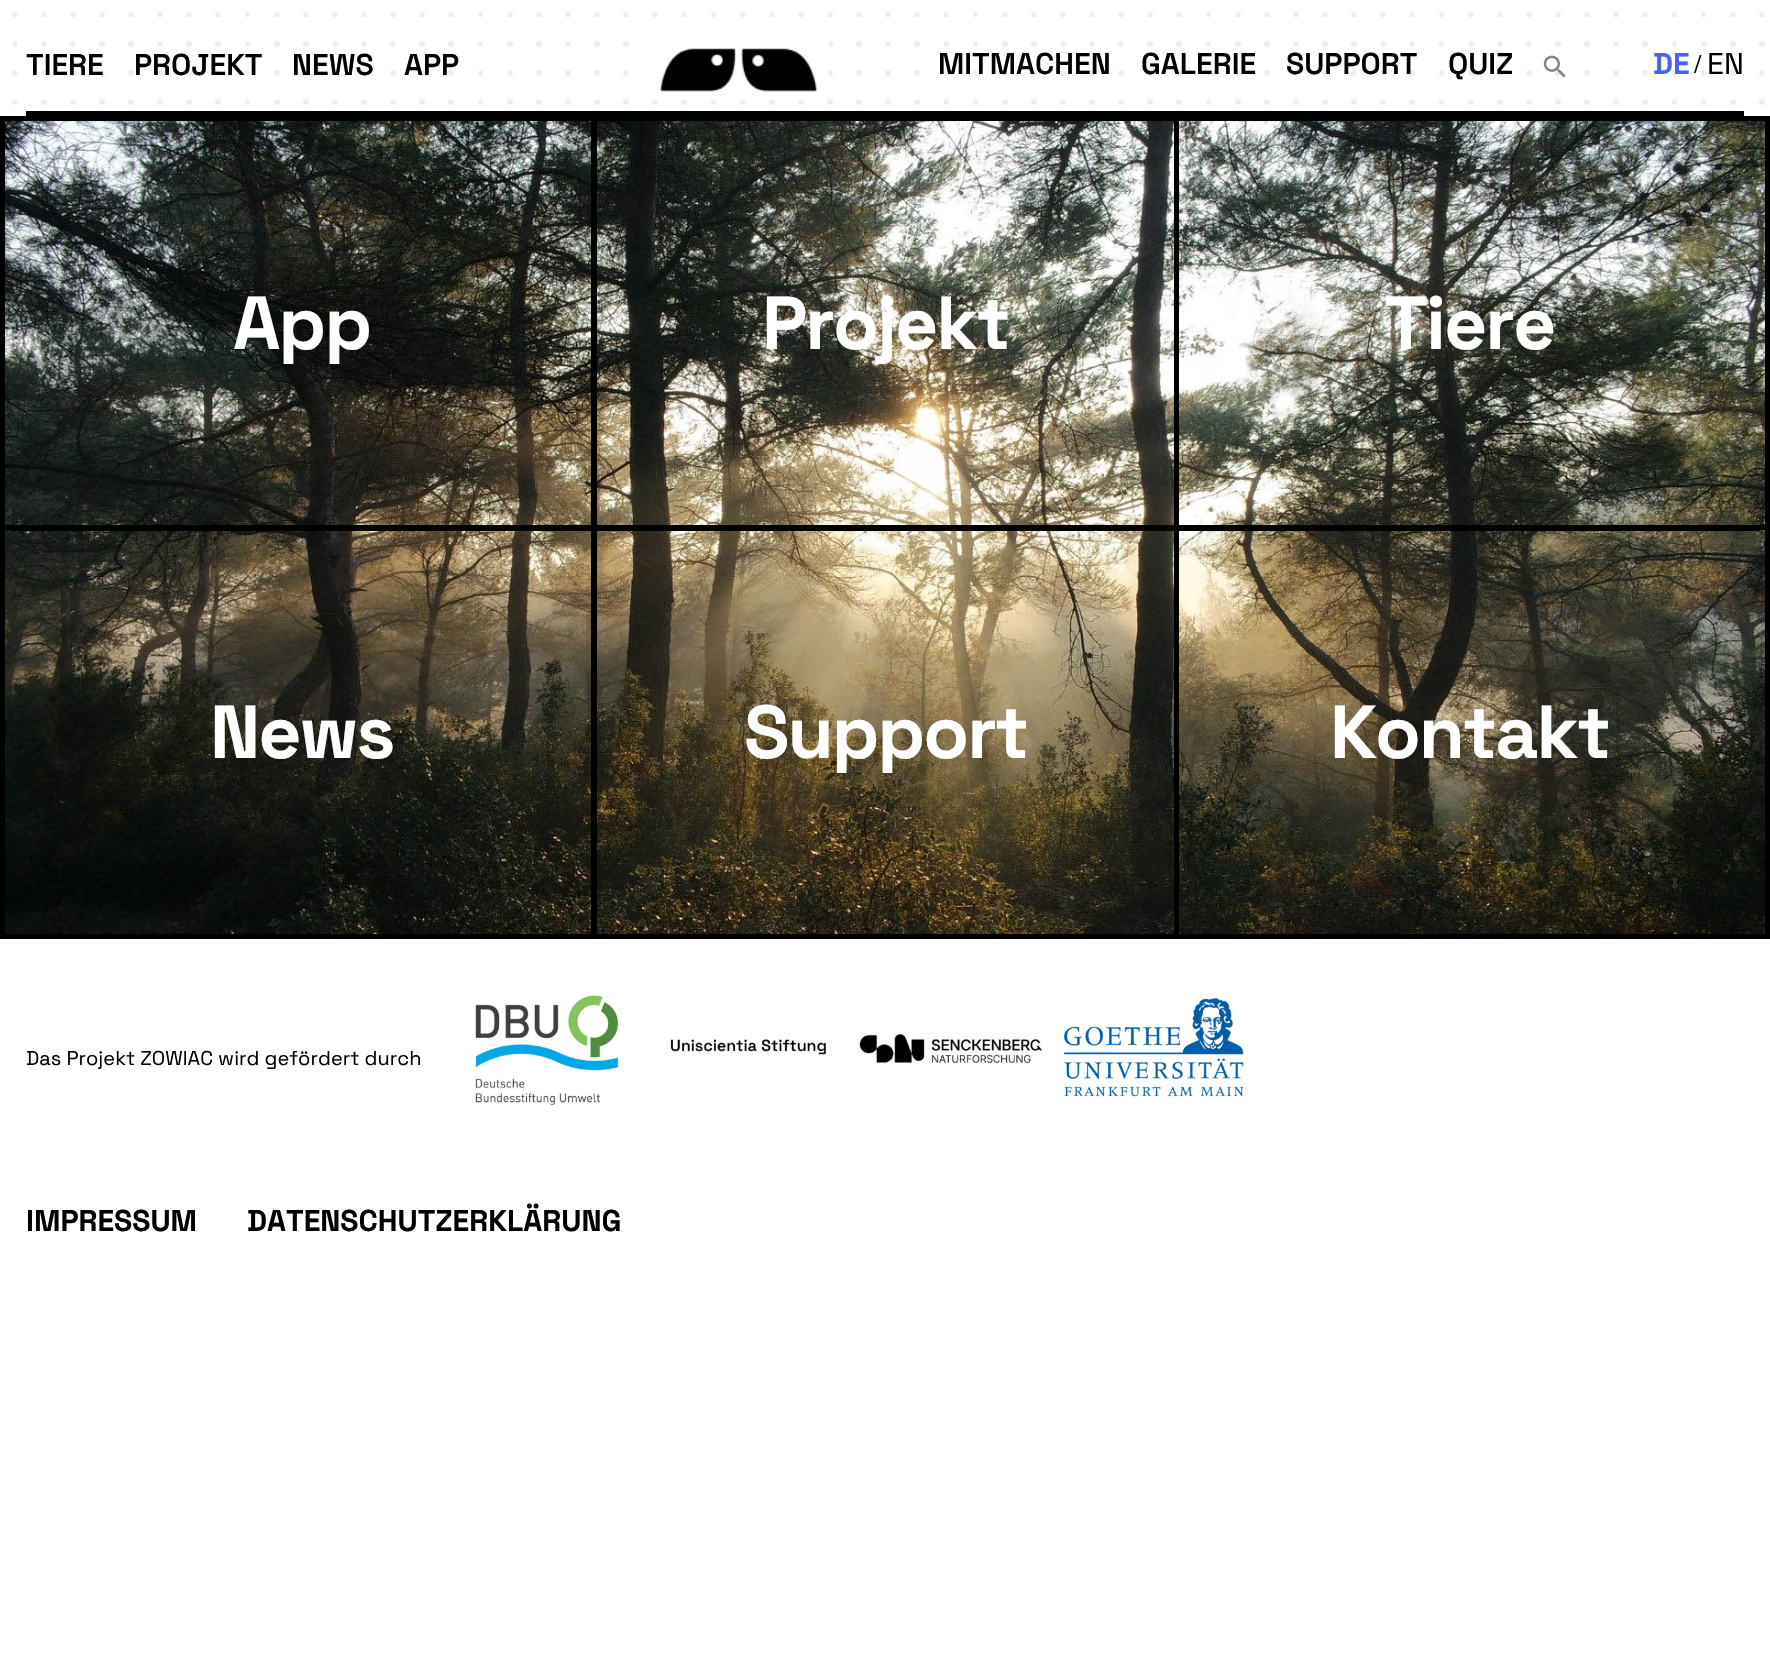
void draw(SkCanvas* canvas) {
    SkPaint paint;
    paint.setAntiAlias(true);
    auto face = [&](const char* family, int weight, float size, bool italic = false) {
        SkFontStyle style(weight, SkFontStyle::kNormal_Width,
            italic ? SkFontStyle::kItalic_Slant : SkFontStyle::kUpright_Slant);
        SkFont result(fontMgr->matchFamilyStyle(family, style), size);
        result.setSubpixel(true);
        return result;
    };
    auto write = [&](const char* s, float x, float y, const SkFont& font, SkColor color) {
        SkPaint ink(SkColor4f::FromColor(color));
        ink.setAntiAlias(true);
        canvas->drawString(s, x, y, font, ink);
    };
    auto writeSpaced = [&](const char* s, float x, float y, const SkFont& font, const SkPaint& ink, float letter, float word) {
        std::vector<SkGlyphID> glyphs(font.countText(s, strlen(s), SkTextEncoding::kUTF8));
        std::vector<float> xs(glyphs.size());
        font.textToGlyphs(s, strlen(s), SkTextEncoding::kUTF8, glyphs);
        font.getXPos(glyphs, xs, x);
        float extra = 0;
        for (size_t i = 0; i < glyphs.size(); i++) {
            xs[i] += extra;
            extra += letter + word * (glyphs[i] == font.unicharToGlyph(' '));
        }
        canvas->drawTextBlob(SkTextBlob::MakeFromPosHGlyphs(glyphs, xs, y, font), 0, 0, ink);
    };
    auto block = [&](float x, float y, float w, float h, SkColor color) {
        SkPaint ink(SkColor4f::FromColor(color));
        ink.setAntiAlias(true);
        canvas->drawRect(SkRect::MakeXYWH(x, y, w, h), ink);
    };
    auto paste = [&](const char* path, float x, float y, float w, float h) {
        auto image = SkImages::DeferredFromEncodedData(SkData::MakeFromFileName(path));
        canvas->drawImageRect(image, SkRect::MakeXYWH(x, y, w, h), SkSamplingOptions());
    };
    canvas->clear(SK_ColorWHITE);
    paste("pic1.png", 12, 12, 1753, 93);
    block(26, 111, 1718, 5, SK_ColorBLACK);
    auto kFont1 = face("Space Grotesk", 600, 30);
    write("TIERE", 26, 75, kFont1, SK_ColorBLACK);
    write("PROJEKT", 134, 75, kFont1, SK_ColorBLACK);
    write("NEWS", 292, 75, kFont1, SK_ColorBLACK);
    write("APP", 404, 75, kFont1, SK_ColorBLACK);
    paste("pic2.png", 652, 41, 177, 51);
    write("MITMACHEN", 938, 74, kFont1, SK_ColorBLACK);
    write("GALERIE", 1141, 74, kFont1, SK_ColorBLACK);
    write("SUPPORT", 1286, 74, kFont1, SK_ColorBLACK);
    write("QUIZ", 1448, 74, kFont1, SK_ColorBLACK);
    paste("pic3.png", 1543, 55, 23, 23);
    auto kFont2 = face("Space Grotesk", 300, 30);
    write("DE", 1653, 74, kFont2, SkColorSetRGB(76, 96, 251));
    auto kFont3 = face("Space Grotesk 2", 300, 20);
    write("/", 1694, 69, kFont3, SK_ColorBLACK);
    auto kFont4 = face("Space Grotesk 2", 300, 30);
    write("EN", 1707, 74, kFont4, SK_ColorBLACK);
    paste("pic4.png", 5, 121, 1760, 813);
    paint.setStyle(SkPaint::kStroke_Style);
    paint.setStrokeWidth(5);
    paint.setColor(SK_ColorBLACK);
    canvas->drawRect(SkRect::MakeXYWH(2.5f, 118.5f, 1765, 818), paint);
    block(5, 525, 1760, 5, SK_ColorBLACK);
    block(591, 121, 6, 407, SK_ColorBLACK);
    auto kFont5 = face("Space Grotesk", 300, 75);
    paint.setStyle(SkPaint::kFill_Style);
    paint.setColor(SK_ColorWHITE);
    writeSpaced("App", 233, 349, kFont5, paint, -2, 0);
    block(1174, 121, 5, 407, SK_ColorBLACK);
    writeSpaced("Projekt", 762, 349, kFont5, paint, -2, 0);
    writeSpaced("Tiere", 1384, 349, kFont5, paint, -2, 0);
    block(11, 530, 1748, 1, SK_ColorBLACK);
    block(591, 528, 6, 406, SK_ColorBLACK);
    writeSpaced("News", 210, 758, kFont5, paint, -2, 0);
    block(1174, 528, 5, 406, SK_ColorBLACK);
    writeSpaced("Support", 744, 758, kFont5, paint, -2, 0);
    writeSpaced("Kontakt", 1330, 758, kFont5, paint, -2, 0);
    write("Das Projekt ZOWIAC wird gefördert durch", 26, 1065, kFont3, SK_ColorBLACK);
    paste("pic5.png", 475, 994, 144, 112);
    paste("pic6.png", 670, 1039, 157, 16);
    paste("pic7.png", 857, 1034, 186, 30);
    paste("pic8.png", 1063, 997, 181, 100);
    write("IMPRESSUM", 26, 1231, kFont2, SK_ColorBLACK);
    write("DATENSCHUTZERKLÄRUNG", 247, 1231, kFont2, SK_ColorBLACK);
}
